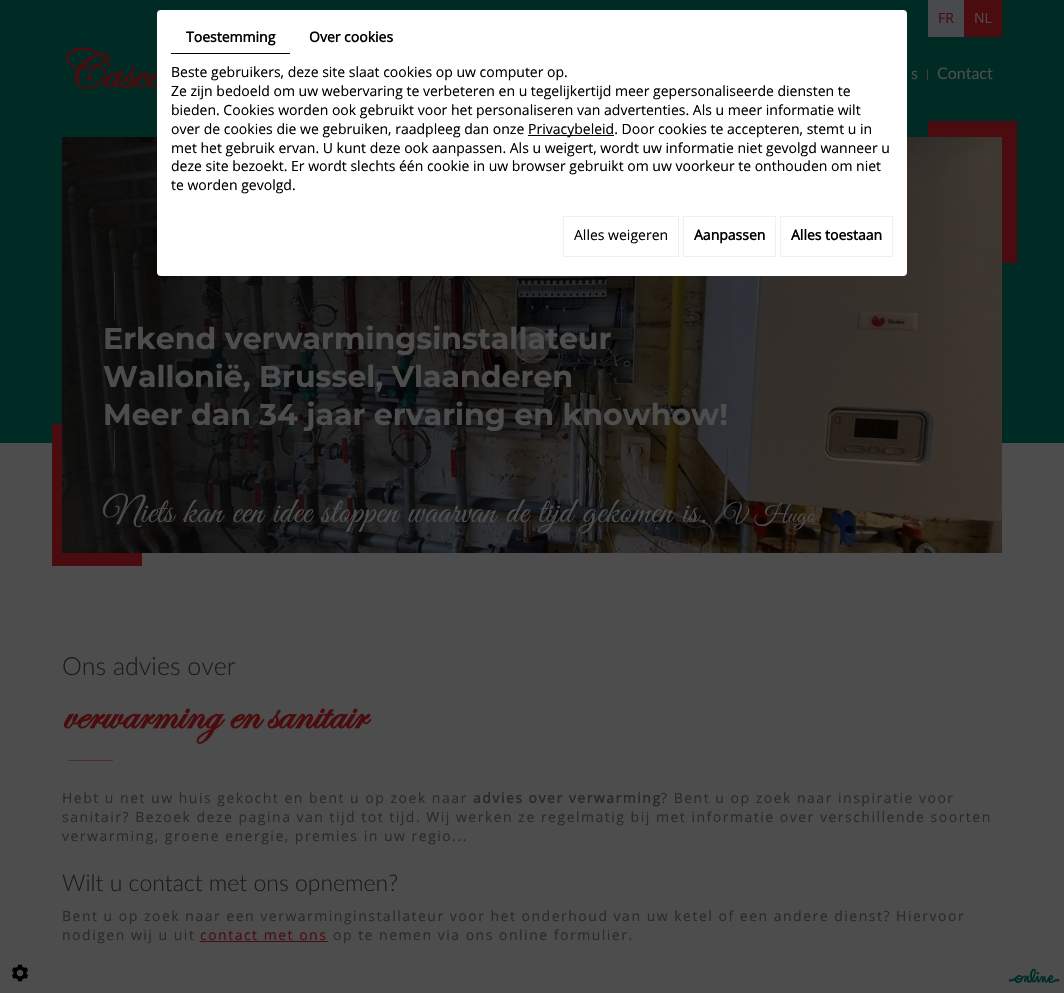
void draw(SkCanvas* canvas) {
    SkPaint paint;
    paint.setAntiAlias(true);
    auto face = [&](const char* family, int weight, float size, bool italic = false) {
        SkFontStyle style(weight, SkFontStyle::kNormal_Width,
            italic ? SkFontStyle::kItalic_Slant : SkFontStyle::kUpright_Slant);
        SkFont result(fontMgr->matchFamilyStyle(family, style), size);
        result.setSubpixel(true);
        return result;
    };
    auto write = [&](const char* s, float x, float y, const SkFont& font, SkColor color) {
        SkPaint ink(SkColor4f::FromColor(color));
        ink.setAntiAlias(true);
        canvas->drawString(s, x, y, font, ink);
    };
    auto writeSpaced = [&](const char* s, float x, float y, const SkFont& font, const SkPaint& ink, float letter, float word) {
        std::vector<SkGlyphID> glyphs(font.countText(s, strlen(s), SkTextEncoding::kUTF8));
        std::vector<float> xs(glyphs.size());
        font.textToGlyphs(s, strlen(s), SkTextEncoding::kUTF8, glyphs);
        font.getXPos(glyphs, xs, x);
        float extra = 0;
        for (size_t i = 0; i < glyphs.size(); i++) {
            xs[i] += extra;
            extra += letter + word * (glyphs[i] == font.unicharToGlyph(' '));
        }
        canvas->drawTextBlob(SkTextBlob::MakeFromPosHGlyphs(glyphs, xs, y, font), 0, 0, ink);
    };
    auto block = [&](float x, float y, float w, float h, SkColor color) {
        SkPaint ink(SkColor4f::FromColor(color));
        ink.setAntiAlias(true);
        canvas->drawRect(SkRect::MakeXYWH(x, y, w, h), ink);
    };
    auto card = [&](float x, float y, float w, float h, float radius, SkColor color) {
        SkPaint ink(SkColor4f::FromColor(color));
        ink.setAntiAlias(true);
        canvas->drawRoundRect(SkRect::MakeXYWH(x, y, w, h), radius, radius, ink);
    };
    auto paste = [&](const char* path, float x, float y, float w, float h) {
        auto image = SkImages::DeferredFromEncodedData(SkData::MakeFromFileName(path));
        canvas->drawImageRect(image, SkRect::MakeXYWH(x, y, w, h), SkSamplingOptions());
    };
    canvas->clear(SkColorSetRGB(77, 77, 77));
    block(0, 0, 1064, 443, SkColorSetRGB(0, 43, 36));
    block(928, 0, 36, 37, SkColorSetRGB(72, 74, 77));
    auto kFont1 = face("Open Sans", 400, 14);
    write("FR", 938, 23, kFont1, SkColorSetRGB(74, 12, 14));
    block(964, 0, 38, 37, SkColorSetRGB(74, 12, 14));
    write("NL", 974, 23, kFont1, SkColorSetRGB(77, 77, 77));
    paste("pic1.png", 65, 47, 92, 43);
    block(927, 69, 1, 11, SkColorSetRGB(62, 62, 62));
    auto kFont2 = face("Lato", 400, 16);
    write("s", 911, 79, kFont2, SkColorSetRGB(77, 77, 77));
    write("Contact", 937, 79, kFont2, SkColorSetRGB(77, 77, 77));
    block(928, 121, 89, 142, SkColorSetRGB(74, 12, 14));
    block(52, 424, 90, 142, SkColorSetRGB(74, 12, 14));
    paste("pic2.png", 62, 137, 940, 416);
    paste("pic3.png", 62, 137, 620, 416);
    paint.setColor(SkColorSetARGB(77, 77, 77, 77));
    canvas->drawCircle(532, 345, 18, paint);
    paste("pic4.png", 517, 330, 30, 30);
    paint.setStyle(SkPaint::kStroke_Style);
    paint.setStrokeWidth(1);
    paint.setColor(SkColorSetARGB(84, 77, 77, 77));
    canvas->drawCircle(532, 345, 17.5f, paint);
    paste("pic5.png", 114, 272, 1, 196);
    auto kFont3 = face("Montserrat", 700, 30);
    write("Erkend verwarmingsinstallateur", 103, 349, kFont3, SkColorSetRGB(77, 77, 77));
    write("Wallonië, Brussel, Vlaanderen", 103, 387, kFont3, SkColorSetRGB(77, 77, 77));
    write("Meer dan 34 jaar ervaring en knowhow!", 103, 425, kFont3, SkColorSetRGB(77, 77, 77));
    auto kFont4 = face("Great Vibes", 400, 36);
    paint.setStyle(SkPaint::kFill_Style);
    paint.setColor(SkColorSetRGB(77, 77, 77));
    writeSpaced("Niets kan een idee stoppen waarvan de tijd gekomen is.", 103, 522, kFont4, paint, 0.4f, 0);
    auto kFont5 = face("Great Vibes", 400, 24);
    writeSpaced("V Hugo", 724, 522, kFont5, paint, 0.4f, 0);
    auto kFont6 = face("Lato", 300, 25);
    write("Ons advies over", 62, 675, kFont6, SkColorSetRGB(26, 26, 26));
    auto kFont7 = face("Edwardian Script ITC", 700, 48);
    write("verwarming en sanitair", 62, 728, kFont7, SkColorSetRGB(74, 12, 14));
    block(68, 760, 45, 1, SkColorSetRGB(75, 47, 48));
    paint.setColor(SkColorSetRGB(39, 41, 43));
    writeSpaced("Hebt u net uw huis gekocht en bent u op zoek naar", 62, 803, kFont1, paint, 1.5f, 0);
    auto kFont8 = face("Open Sans", 700, 14);
    writeSpaced("advies over verwarming", 473, 803, kFont8, paint, 1.5f, 0);
    writeSpaced("? Bent u op zoek naar inspiratie voor", 661, 803, kFont1, paint, 1.5f, 0);
    writeSpaced("sanitair? Bezoek deze pagina van tijd tot tijd. Wij werken ze regelmatig bij met informatie over verschillende soorten", 62, 822, kFont1, paint, 1.5f, 0);
    writeSpaced("verwarming, groene energie, premies in uw regio...", 62, 841, kFont1, paint, 1.5f, 0);
    auto kFont9 = face("Lato", 300, 23);
    write("Wilt u contact met ons opnemen?", 62, 891, kFont9, SkColorSetRGB(26, 26, 26));
    writeSpaced("Bent u op zoek naar een verwarminginstallateur voor het onderhoud van uw ketel of een andere dienst? Hiervoor", 62, 921, kFont1, paint, 1.5f, 0);
    writeSpaced("nodigen wij u uit", 62, 940, kFont1, paint, 1.5f, 0);
    paint.setColor(SkColorSetRGB(74, 12, 14));
    writeSpaced("contact met ons", 200, 940, kFont1, paint, 1.5f, 0);
    block(200, 941, 128, 1, SkColorSetRGB(74, 12, 14));
    paint.setColor(SkColorSetRGB(39, 41, 43));
    writeSpaced("op te nemen via ons online formulier.", 333, 940, kFont1, paint, 1.5f, 0);
    card(157, 10, 750, 266, 4, SK_ColorWHITE);
    block(171, 53, 119, 1, SK_ColorBLACK);
    write("Toestemming", 186, 42, kFont8, SK_ColorBLACK);
    write("Over cookies", 309, 42, kFont8, SK_ColorBLACK);
    write("Beste gebruikers, deze site slaat cookies op uw computer op.", 171, 77, kFont1, SK_ColorBLACK);
    write("Ze zijn bedoeld om uw webervaring te verbeteren en u tegelijkertijd meer gepersonaliseerde diensten te", 171, 96, kFont1, SK_ColorBLACK);
    write("bieden. Cookies worden ook gebruikt voor het personaliseren van advertenties. Als u meer informatie wilt", 171, 115, kFont1, SK_ColorBLACK);
    write("over de cookies die we gebruiken, raadpleeg dan onze", 171, 134, kFont1, SK_ColorBLACK);
    block(528, 135, 86, 1, SK_ColorBLACK);
    write("Privacybeleid. Door cookies te accepteren, stemt u in", 528, 134, kFont1, SK_ColorBLACK);
    write("met het gebruik ervan. U kunt deze ook aanpassen. Als u weigert, wordt uw informatie niet gevolgd wanneer u", 171, 153, kFont1, SK_ColorBLACK);
    write("deze site bezoekt. Er wordt slechts één cookie in uw browser gebruikt om uw voorkeur te onthouden om niet", 171, 171, kFont1, SK_ColorBLACK);
    write("te worden gevolgd.", 171, 190, kFont1, SK_ColorBLACK);
    paint.setStyle(SkPaint::kStroke_Style);
    paint.setColor(SkColorSetRGB(240, 240, 240));
    canvas->drawRect(SkRect::MakeXYWH(563.5f, 216.5f, 115, 40), paint);
    write("Alles weigeren", 574, 240, kFont1, SK_ColorBLACK);
    canvas->drawRect(SkRect::MakeXYWH(683.5f, 216.5f, 92, 40), paint);
    write("Aanpassen", 694, 240, kFont8, SK_ColorBLACK);
    canvas->drawRect(SkRect::MakeXYWH(780.5f, 216.5f, 112, 40), paint);
    write("Alles toestaan", 791, 240, kFont8, SK_ColorBLACK);
    paste("pic6.png", 11, 964, 18, 18);
    paste("pic7.png", 1009, 968, 51, 15);
    paste("pic8.png", 1009, 968, 51, 15);
}
